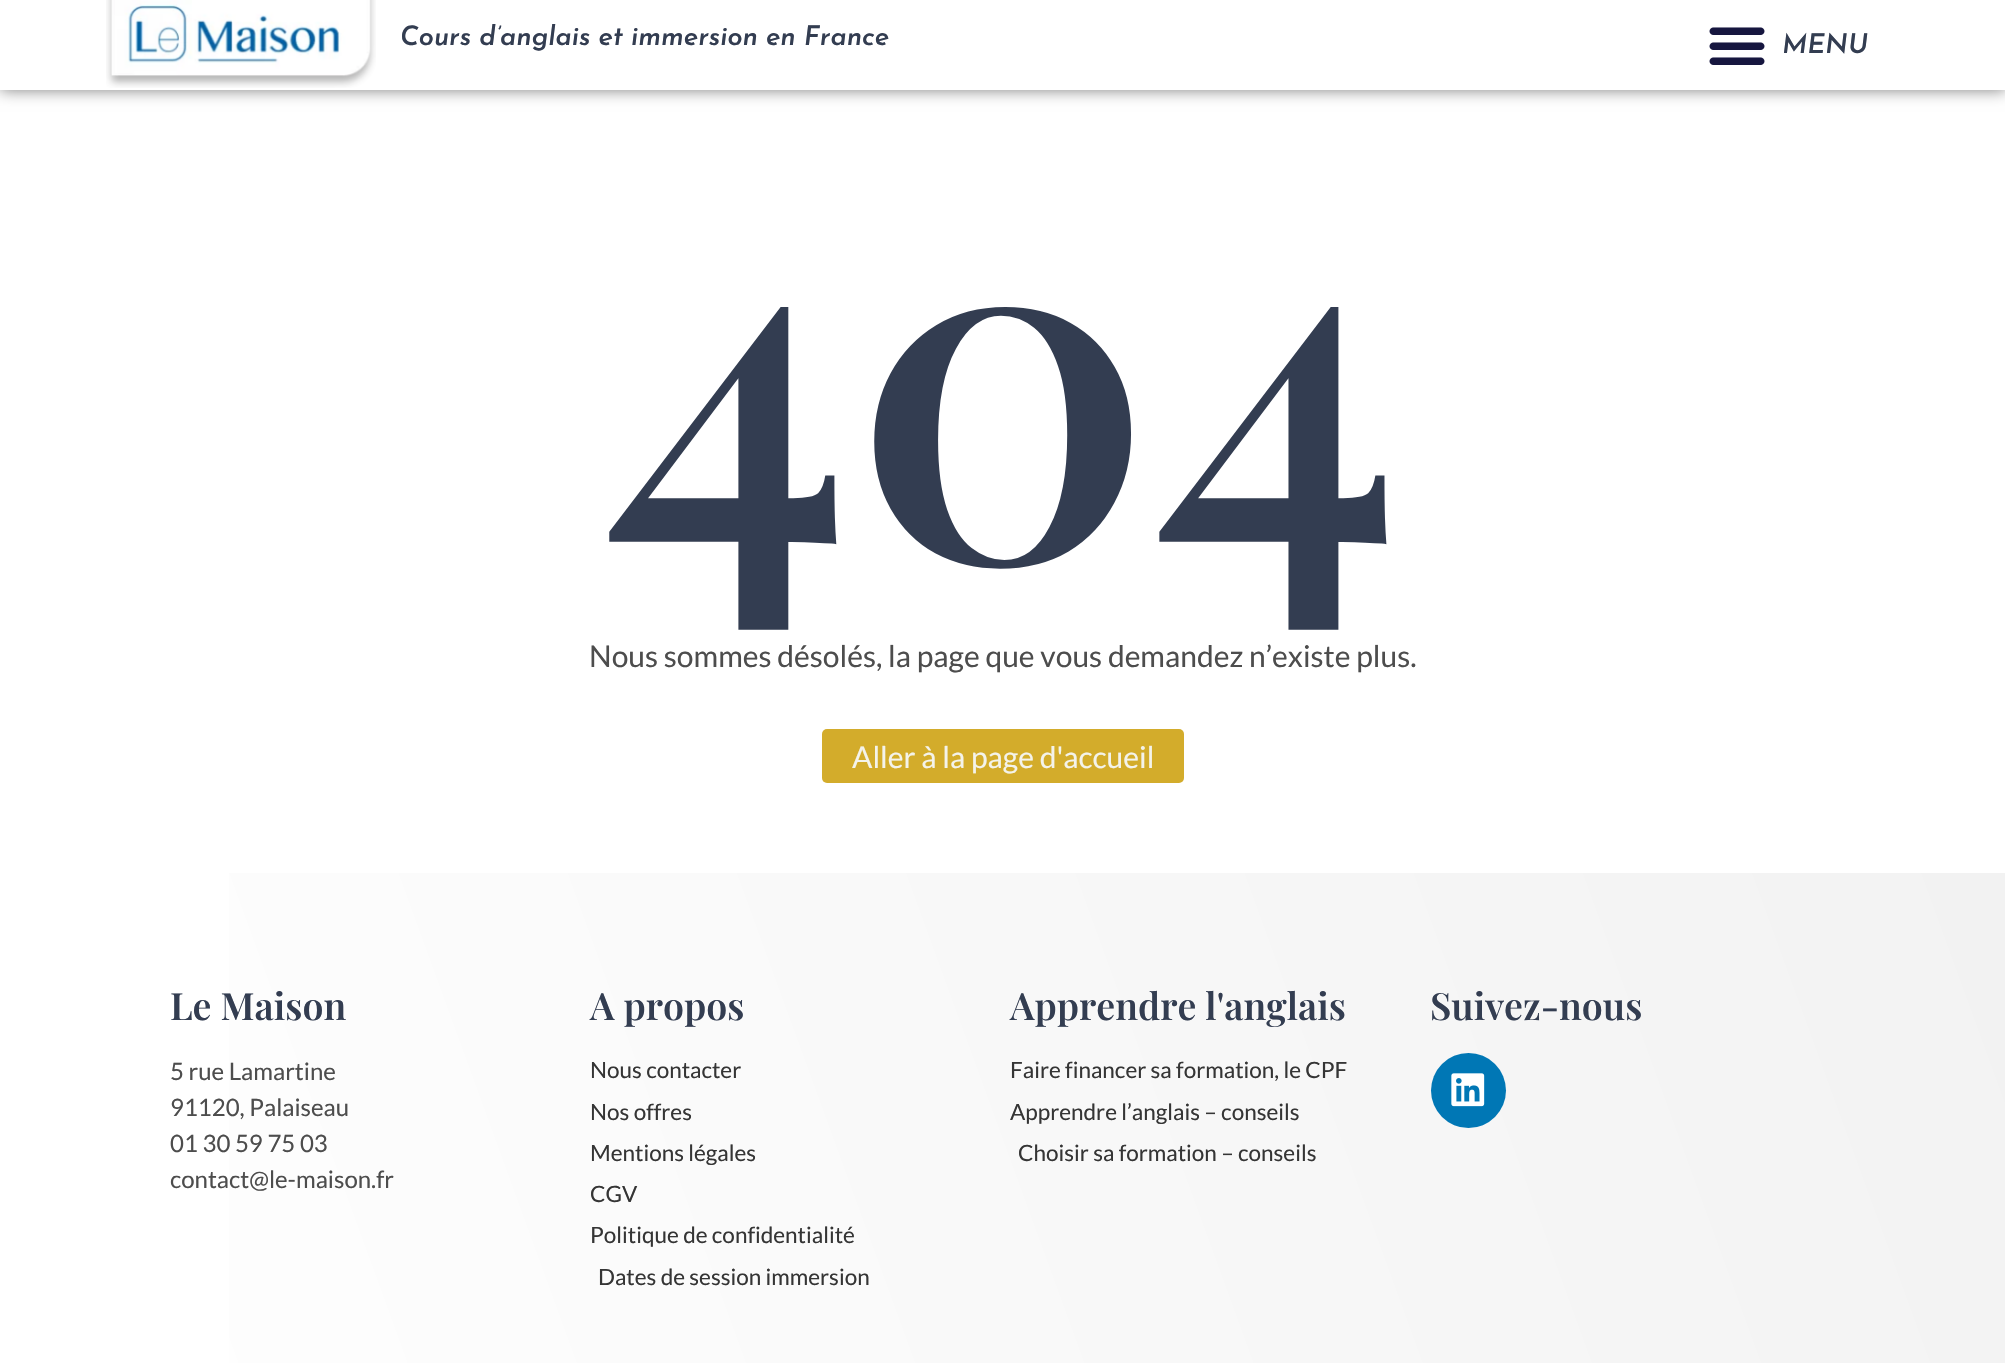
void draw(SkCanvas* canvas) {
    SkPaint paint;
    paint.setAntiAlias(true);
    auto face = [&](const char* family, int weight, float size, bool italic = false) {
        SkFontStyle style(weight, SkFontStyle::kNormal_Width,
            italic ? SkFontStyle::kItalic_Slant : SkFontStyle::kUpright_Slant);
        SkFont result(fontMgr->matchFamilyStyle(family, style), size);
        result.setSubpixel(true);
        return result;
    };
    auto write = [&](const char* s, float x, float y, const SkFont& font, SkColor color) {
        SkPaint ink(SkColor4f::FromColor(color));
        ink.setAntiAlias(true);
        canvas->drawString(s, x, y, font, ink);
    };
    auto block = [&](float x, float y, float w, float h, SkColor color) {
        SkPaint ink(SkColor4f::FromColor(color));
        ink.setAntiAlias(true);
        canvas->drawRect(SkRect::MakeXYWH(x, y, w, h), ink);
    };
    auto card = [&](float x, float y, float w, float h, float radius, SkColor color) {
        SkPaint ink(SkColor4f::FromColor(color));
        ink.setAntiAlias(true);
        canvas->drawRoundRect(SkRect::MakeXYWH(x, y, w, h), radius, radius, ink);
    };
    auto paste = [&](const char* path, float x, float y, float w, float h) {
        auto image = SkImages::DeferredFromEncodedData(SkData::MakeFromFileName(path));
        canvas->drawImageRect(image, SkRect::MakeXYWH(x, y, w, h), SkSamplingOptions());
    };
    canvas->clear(SK_ColorWHITE);
    paint.setColor(SkColorSetARGB(128, 0, 0, 0));
    paint.setMaskFilter(SkMaskFilter::MakeBlur(kNormal_SkBlurStyle, 7.5f));
    canvas->drawRect(SkRect::MakeXYWH(0, 0, 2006, 90), paint);
    paint.setMaskFilter(nullptr);
    block(0, 0, 2005, 90, SK_ColorWHITE);
    paste("pic1.png", 106, 0, 270, 88);
    auto kFont1 = face("Josefin Sans", 600, 27, true);
    write("Cours d’anglais et immersion en France", 400, 45, kFont1, SkColorSetRGB(51, 61, 81));
    paste("pic2.png", 1709, 27, 56, 38);
    write("MENU", 1782, 53, kFont1, SkColorSetRGB(51, 61, 81));
    auto kFont2 = face("Playfair Display", 600, 480);
    write("404", 604, 562, kFont2, SkColorSetRGB(51, 61, 81));
    auto kFont3 = face("Lato", 400, 30);
    write("Nous sommes désolés, la page que vous demandez n’existe plus.", 589, 667, kFont3, SkColorSetRGB(77, 77, 77));
    card(822, 729, 362, 54, 5, SkColorSetRGB(211, 172, 43));
    write("Aller à la page d'accueil", 852, 768, kFont3, SkColorSetRGB(244, 243, 234));
    {
        const SkColor colors[] = {SkColorSetRGB(242, 242, 242), SK_ColorWHITE};
        const float stops[] = {0, 1};
        const SkPoint ends[] = {{1974, 786}, {32, 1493}};
        paint.setShader(SkGradientShader::MakeLinear(ends, colors, stops, 2, SkTileMode::kClamp));
        paint.setAlpha(255);
    }
    canvas->drawRect(SkRect::MakeXYWH(229, 873, 1776, 490), paint);
    auto kFont4 = face("Playfair Display", 600, 37.5f);
    write("Le Maison", 170, 1020, kFont4, SkColorSetRGB(51, 61, 81));
    auto kFont5 = face("Lato", 400, 24);
    write("5 rue Lamartine", 170, 1080, kFont5, SkColorSetRGB(77, 77, 77));
    write("91120, Palaiseau", 170, 1116, kFont5, SkColorSetRGB(77, 77, 77));
    write("01 30 59 75 03", 170, 1152, kFont5, SkColorSetRGB(77, 77, 77));
    write("contact@le-maison.fr", 170, 1188, kFont5, SkColorSetRGB(77, 77, 77));
    write("A propos", 590, 1020, kFont4, SkColorSetRGB(51, 61, 81));
    auto kFont6 = face("Lato", 400, 22.5f);
    write("Nous contacter", 590, 1078, kFont6, SkColorSetRGB(53, 53, 53));
    write("Nos offres", 590, 1120, kFont6, SkColorSetRGB(53, 53, 53));
    write("Mentions légales", 590, 1161, kFont6, SkColorSetRGB(53, 53, 53));
    write("CGV", 590, 1202, kFont6, SkColorSetRGB(53, 53, 53));
    write("Politique de confidentialité", 590, 1243, kFont6, SkColorSetRGB(53, 53, 53));
    write("Dates de session immersion", 598, 1285, kFont6, SkColorSetRGB(53, 53, 53));
    write("Apprendre l'anglais", 1010, 1020, kFont4, SkColorSetRGB(51, 61, 81));
    write("Faire financer sa formation, le CPF", 1010, 1078, kFont6, SkColorSetRGB(53, 53, 53));
    write("Apprendre l’anglais – conseils", 1010, 1120, kFont6, SkColorSetRGB(53, 53, 53));
    write("Choisir sa formation – conseils", 1018, 1161, kFont6, SkColorSetRGB(53, 53, 53));
    write("Suivez-nous", 1430, 1020, kFont4, SkColorSetRGB(51, 61, 81));
    paint.setShader(nullptr);
    paint.setColor(SkColorSetRGB(0, 119, 181));
    canvas->drawCircle(1468.5f, 1090.5f, 37.5f, paint);
    paste("pic3.png", 1451, 1073, 34, 34);
}
